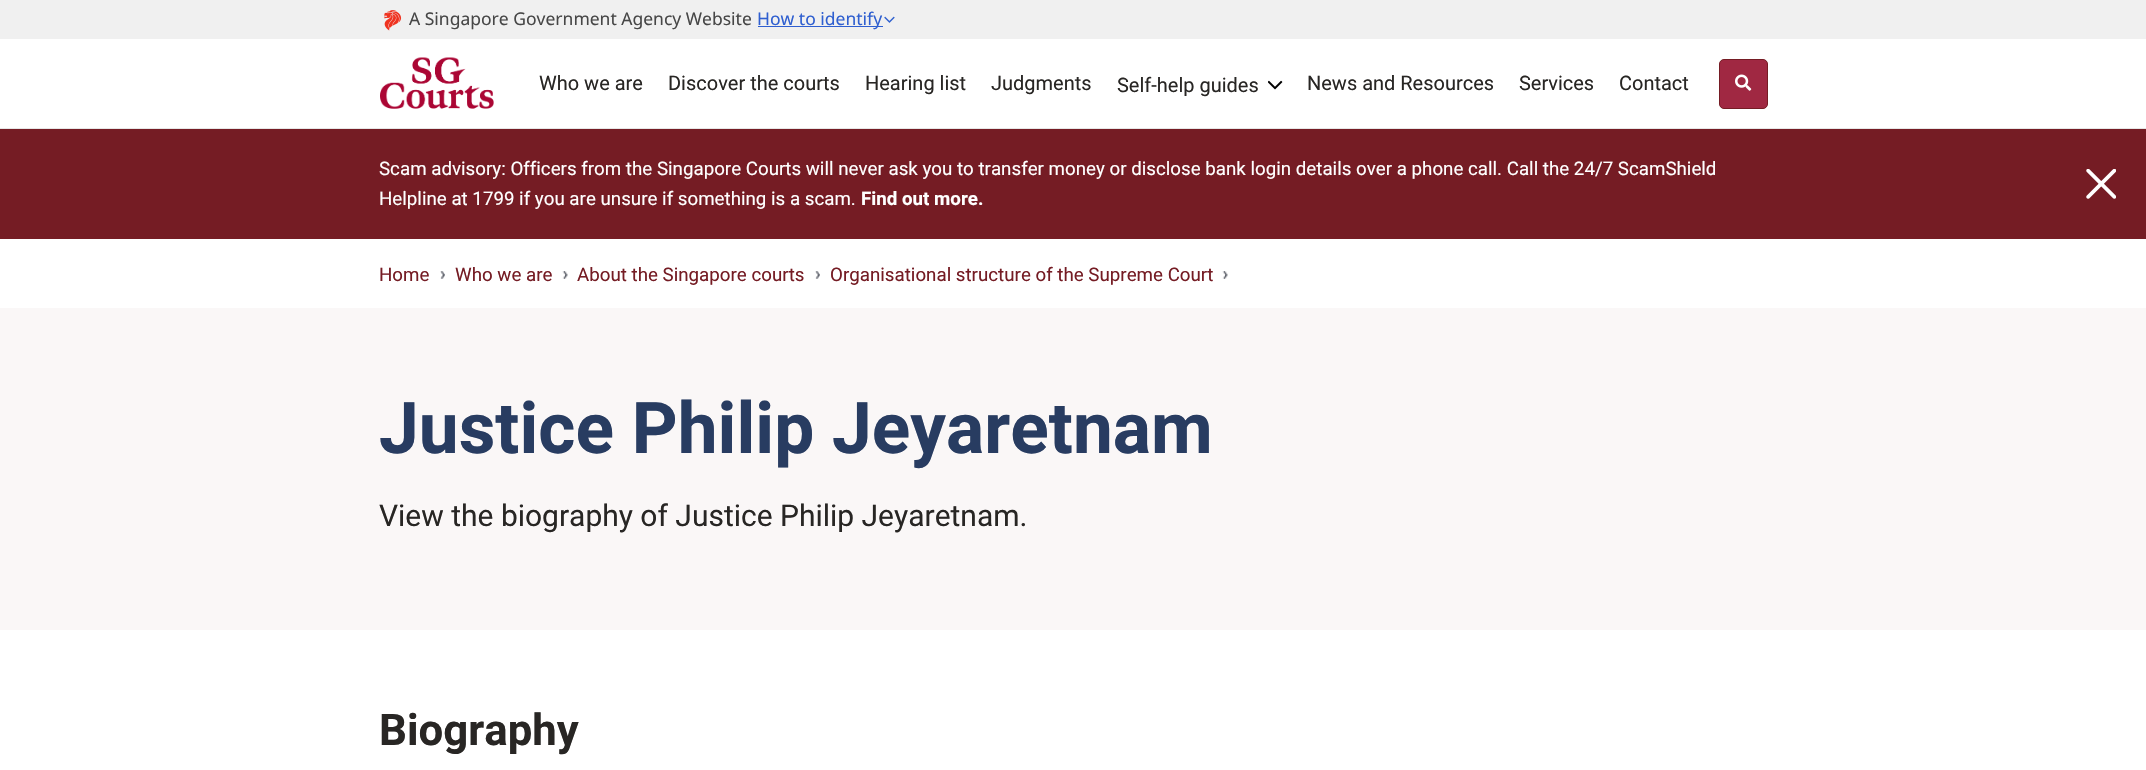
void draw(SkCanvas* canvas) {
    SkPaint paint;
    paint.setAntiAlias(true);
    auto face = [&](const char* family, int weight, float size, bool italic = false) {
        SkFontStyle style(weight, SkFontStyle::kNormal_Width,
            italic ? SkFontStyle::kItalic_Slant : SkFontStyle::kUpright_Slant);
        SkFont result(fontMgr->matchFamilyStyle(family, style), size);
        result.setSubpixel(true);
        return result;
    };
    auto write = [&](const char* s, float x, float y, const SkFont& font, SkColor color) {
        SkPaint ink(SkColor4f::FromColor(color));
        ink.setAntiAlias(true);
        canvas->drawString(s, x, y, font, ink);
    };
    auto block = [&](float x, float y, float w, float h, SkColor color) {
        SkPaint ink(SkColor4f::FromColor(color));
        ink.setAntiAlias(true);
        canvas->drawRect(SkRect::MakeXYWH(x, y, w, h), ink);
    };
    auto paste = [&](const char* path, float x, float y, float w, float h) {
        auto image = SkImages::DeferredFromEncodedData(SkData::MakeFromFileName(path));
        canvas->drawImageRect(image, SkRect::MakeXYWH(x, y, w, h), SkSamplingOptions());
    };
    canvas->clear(SK_ColorWHITE);
    block(0, 0, 2146, 39, SkColorSetRGB(240, 240, 240));
    paste("pic1.png", 384, 10, 18, 21);
    auto kFont1 = face("Noto Sans", 400, 17.5f);
    write("A Singapore Government Agency Website", 409, 25, kFont1, SkColorSetRGB(71, 71, 71));
    block(758, 26, 125, 1, SkColorSetRGB(47, 95, 208));
    write("How to identify", 757, 25, kFont1, SkColorSetRGB(47, 95, 208));
    paste("pic2.png", 884, 16, 11, 7);
    block(0, 128, 2146, 1, SkColorSetRGB(230, 230, 230));
    paste("pic3.png", 380, 57, 114, 52);
    auto kFont2 = face("Roboto", 400, 20);
    write("Who we are", 539, 90, kFont2, SkColorSetRGB(40, 38, 36));
    write("Discover the courts", 668, 90, kFont2, SkColorSetRGB(40, 38, 36));
    write("Hearing list", 865, 90, kFont2, SkColorSetRGB(40, 38, 36));
    write("Judgments", 991, 90, kFont2, SkColorSetRGB(40, 38, 36));
    write("Self-help guides", 1117, 92, kFont2, SkColorSetRGB(40, 38, 36));
    paste("pic4.png", 1268, 80, 15, 10);
    write("News and Resources", 1307, 90, kFont2, SkColorSetRGB(40, 38, 36));
    write("Services", 1519, 90, kFont2, SkColorSetRGB(40, 38, 36));
    write("Contact", 1619, 90, kFont2, SkColorSetRGB(40, 38, 36));
    paint.setColor(SkColorSetRGB(160, 40, 66));
    canvas->drawRoundRect(SkRect::MakeXYWH(1719.5f, 59.5f, 48, 49), 4.5f, 4.5f, paint);
    paint.setStyle(SkPaint::kStroke_Style);
    paint.setStrokeWidth(1);
    paint.setColor(SkColorSetRGB(117, 28, 36));
    canvas->drawRoundRect(SkRect::MakeXYWH(1719.5f, 59.5f, 48, 49), 4.5f, 4.5f, paint);
    paste("pic5.png", 1735, 74, 17, 17);
    block(0, 129, 2146, 110, SkColorSetRGB(117, 28, 36));
    auto kFont3 = face("Roboto", 400, 18.75f);
    write("Scam advisory: Officers from the Singapore Courts will never ask you to transfer money or disclose bank login details over a phone call. Call the 24/7 ScamShield", 379, 175, kFont3, SK_ColorWHITE);
    write("Helpline at 1799 if you are unsure if something is a scam.", 379, 205, kFont3, SK_ColorWHITE);
    auto kFont4 = face("Roboto", 700, 18.75f);
    write("Find out more.", 861, 205, kFont4, SK_ColorWHITE);
    paste("pic6.png", 2086, 169, 30, 30);
    write("Home", 379, 281, kFont3, SkColorSetRGB(117, 28, 36));
    paste("pic7.png", 440, 271, 5, 8);
    write("Who we are", 455, 281, kFont3, SkColorSetRGB(117, 28, 36));
    paste("pic8.png", 562, 271, 6, 8);
    write("About the Singapore courts", 577, 281, kFont3, SkColorSetRGB(117, 28, 36));
    paste("pic7.png", 815, 271, 5, 8);
    write("Organisational structure of the Supreme Court", 830, 281, kFont3, SkColorSetRGB(117, 28, 36));
    paste("pic8.png", 1222, 271, 6, 8);
    block(0, 308, 2146, 322, SkColorSetRGB(250, 247, 247));
    auto kFont5 = face("Roboto", 700, 71.25f);
    write("Justice Philip Jeyaretnam", 379, 453, kFont5, SkColorSetRGB(40, 60, 97));
    auto kFont6 = face("Roboto", 400, 30);
    write("View the biography of Justice Philip Jeyaretnam.", 379, 526, kFont6, SkColorSetRGB(40, 38, 36));
    auto kFont7 = face("Roboto", 700, 43.75f);
    write("Biography", 379, 745, kFont7, SkColorSetRGB(40, 38, 36));
}
